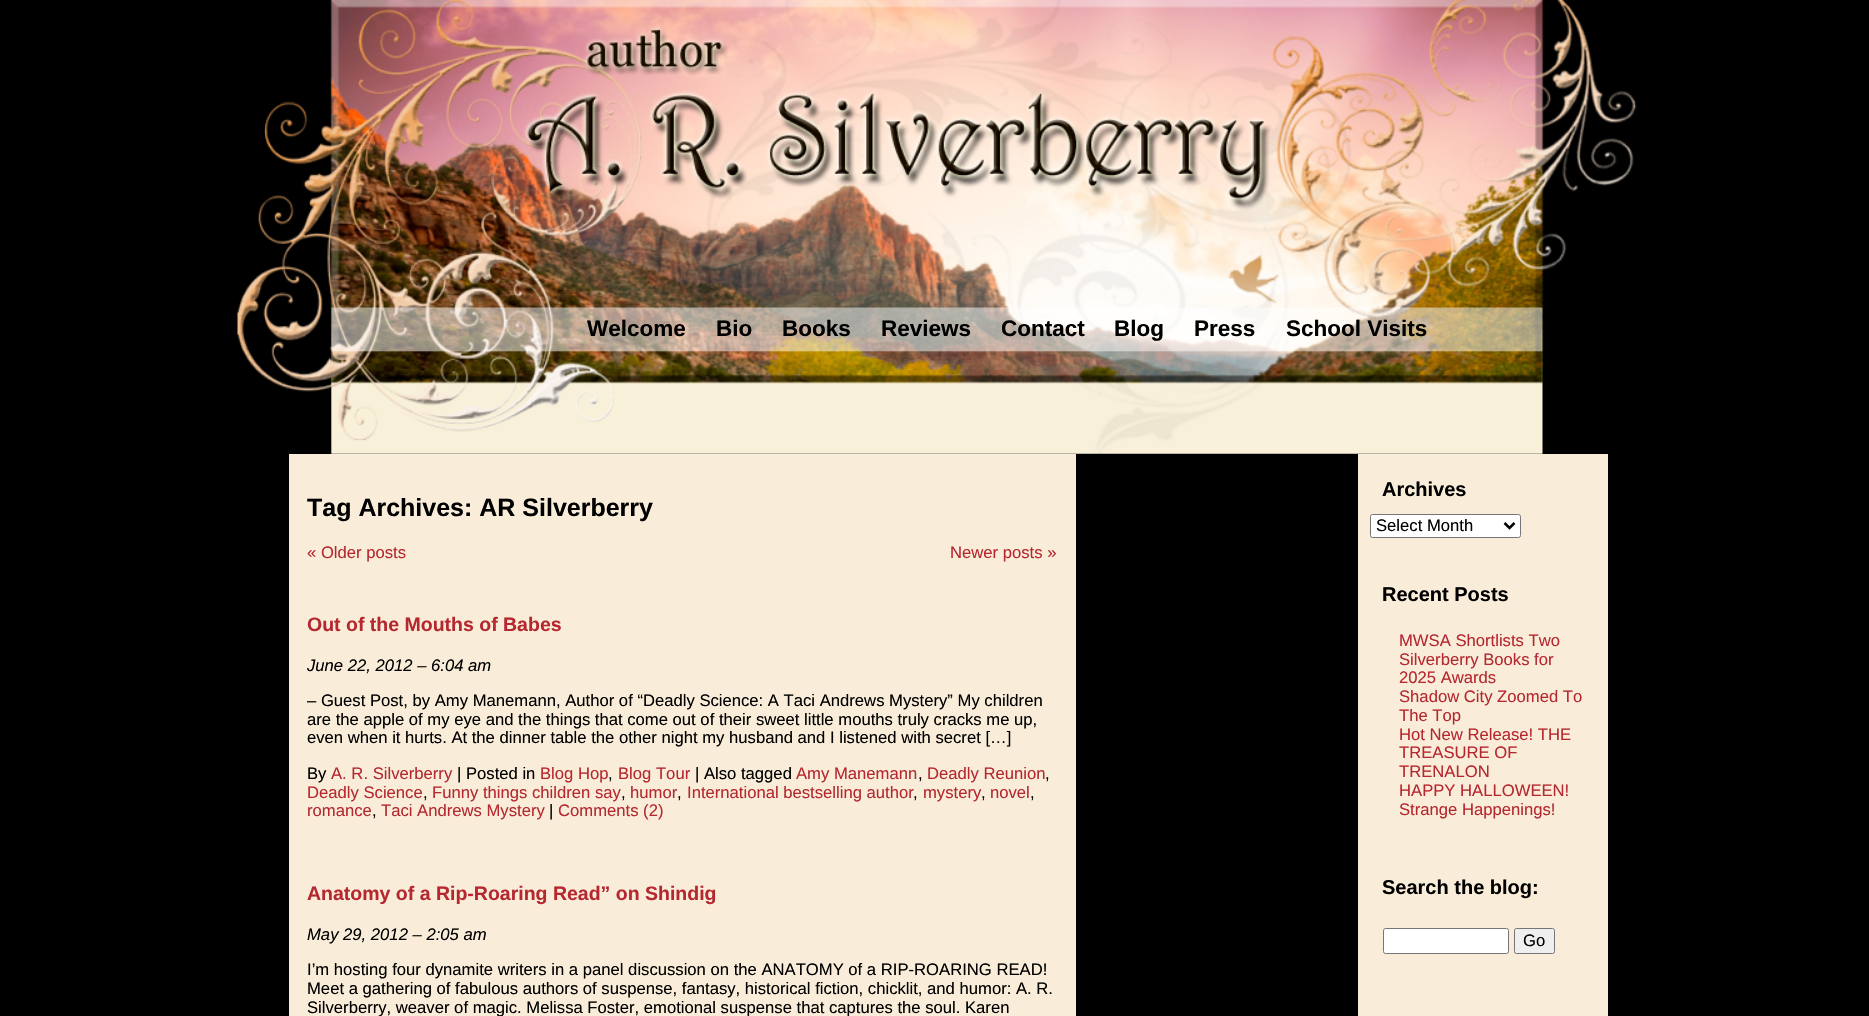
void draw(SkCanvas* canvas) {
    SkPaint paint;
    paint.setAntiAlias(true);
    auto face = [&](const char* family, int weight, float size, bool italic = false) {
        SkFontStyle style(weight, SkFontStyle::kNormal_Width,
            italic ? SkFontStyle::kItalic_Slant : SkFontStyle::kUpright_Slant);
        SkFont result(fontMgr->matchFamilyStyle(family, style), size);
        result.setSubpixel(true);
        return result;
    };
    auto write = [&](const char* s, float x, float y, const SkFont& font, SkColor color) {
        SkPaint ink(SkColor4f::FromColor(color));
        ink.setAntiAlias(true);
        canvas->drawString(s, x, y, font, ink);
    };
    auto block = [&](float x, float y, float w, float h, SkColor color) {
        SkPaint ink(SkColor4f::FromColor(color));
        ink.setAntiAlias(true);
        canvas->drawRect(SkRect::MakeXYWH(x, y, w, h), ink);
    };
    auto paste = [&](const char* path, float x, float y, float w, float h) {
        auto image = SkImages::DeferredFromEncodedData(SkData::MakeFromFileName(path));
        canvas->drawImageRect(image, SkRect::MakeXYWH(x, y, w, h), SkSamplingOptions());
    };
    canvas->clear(SK_ColorBLACK);
    paste("pic1.png", 237, 0, 1400, 454);
    auto kFont1 = face("Liberation Sans", 700, 22.5f);
    write("Welcome", 587, 336, kFont1, SK_ColorBLACK);
    write("Bio", 716, 336, kFont1, SK_ColorBLACK);
    write("Books", 782, 336, kFont1, SK_ColorBLACK);
    write("Reviews", 881, 336, kFont1, SK_ColorBLACK);
    write("Contact", 1001, 336, kFont1, SK_ColorBLACK);
    write("Blog", 1114, 336, kFont1, SK_ColorBLACK);
    write("Press", 1194, 336, kFont1, SK_ColorBLACK);
    write("School Visits", 1286, 336, kFont1, SK_ColorBLACK);
    block(289, 454, 787, 562, SkColorSetRGB(249, 237, 217));
    auto kFont2 = face("Liberation Sans", 700, 25);
    write("Tag Archives: AR Silverberry", 307, 516, kFont2, SK_ColorBLACK);
    auto kFont3 = face("Liberation Sans", 400, 16.65f);
    write("« Older posts", 307, 558, kFont3, SkColorSetRGB(181, 40, 48));
    write("Newer posts »", 950, 558, kFont3, SkColorSetRGB(181, 40, 48));
    auto kFont4 = face("Liberation Sans", 700, 19.5f);
    write("Out of the Mouths of Babes", 307, 631, kFont4, SkColorSetRGB(181, 40, 48));
    auto kFont5 = face("Liberation Sans", 400, 16.65f, true);
    write("June 22, 2012 – 6:04 am", 307, 671, kFont5, SK_ColorBLACK);
    write("– Guest Post, by Amy Manemann, Author of “Deadly Science: A Taci Andrews Mystery” My children", 307, 706, kFont3, SK_ColorBLACK);
    write("are the apple of my eye and the things that come out of their sweet little mouths truly cracks me up,", 307, 725, kFont3, SK_ColorBLACK);
    write("even when it hurts. At the dinner table the other night my husband and I listened with secret […]", 307, 743, kFont3, SK_ColorBLACK);
    write("By", 307, 779, kFont3, SK_ColorBLACK);
    write("A. R. Silverberry", 331, 779, kFont3, SkColorSetRGB(181, 40, 48));
    write("| Posted in", 457, 779, kFont3, SK_ColorBLACK);
    write("Blog Hop", 540, 779, kFont3, SkColorSetRGB(181, 40, 48));
    write(",", 608, 779, kFont3, SK_ColorBLACK);
    write("Blog Tour", 618, 779, kFont3, SkColorSetRGB(181, 40, 48));
    write("| Also tagged", 695, 779, kFont3, SK_ColorBLACK);
    write("Amy Manemann", 796, 779, kFont3, SkColorSetRGB(181, 40, 48));
    write(",", 918, 779, kFont3, SK_ColorBLACK);
    write("Deadly Reunion", 927, 779, kFont3, SkColorSetRGB(181, 40, 48));
    write(",", 1045, 779, kFont3, SK_ColorBLACK);
    write("Deadly Science", 307, 798, kFont3, SkColorSetRGB(181, 40, 48));
    write(",", 423, 798, kFont3, SK_ColorBLACK);
    write("Funny things children say", 432, 798, kFont3, SkColorSetRGB(181, 40, 48));
    write(",", 621, 798, kFont3, SK_ColorBLACK);
    write("humor", 630, 798, kFont3, SkColorSetRGB(181, 40, 48));
    write(",", 677, 798, kFont3, SK_ColorBLACK);
    write("International bestselling author", 687, 798, kFont3, SkColorSetRGB(181, 40, 48));
    write(",", 913, 798, kFont3, SK_ColorBLACK);
    write("mystery", 923, 798, kFont3, SkColorSetRGB(181, 40, 48));
    write(",", 981, 798, kFont3, SK_ColorBLACK);
    write("novel", 990, 798, kFont3, SkColorSetRGB(181, 40, 48));
    write(",", 1030, 798, kFont3, SK_ColorBLACK);
    write("romance", 307, 816, kFont3, SkColorSetRGB(181, 40, 48));
    write(",", 372, 816, kFont3, SK_ColorBLACK);
    write("Taci Andrews Mystery", 381, 816, kFont3, SkColorSetRGB(181, 40, 48));
    write("|", 549, 816, kFont3, SK_ColorBLACK);
    write("Comments (2)", 558, 816, kFont3, SkColorSetRGB(181, 40, 48));
    write("Anatomy of a Rip-Roaring Read” on Shindig", 307, 900, kFont4, SkColorSetRGB(181, 40, 48));
    write("May 29, 2012 – 2:05 am", 307, 940, kFont5, SK_ColorBLACK);
    write("I’m hosting four dynamite writers in a panel discussion on the ANATOMY of a RIP-ROARING READ!", 307, 975, kFont3, SK_ColorBLACK);
    write("Meet a gathering of fabulous authors of suspense, fantasy, historical fiction, chicklit, and humor: A. R.", 307, 994, kFont3, SK_ColorBLACK);
    write("Silverberry, weaver of magic. Melissa Foster, emotional suspense that captures the soul. Karen", 307, 1013, kFont3, SK_ColorBLACK);
    block(1358, 454, 250, 562, SkColorSetRGB(249, 237, 217));
    auto kFont6 = face("Liberation Sans", 700, 20);
    write("Archives", 1382, 496, kFont6, SK_ColorBLACK);
    paint.setColor(SK_ColorWHITE);
    canvas->drawRoundRect(SkRect::MakeXYWH(1370.5f, 514.5f, 150, 23), 2, 2, paint);
    paint.setStyle(SkPaint::kStroke_Style);
    paint.setStrokeWidth(1);
    paint.setColor(SkColorSetRGB(118, 118, 118));
    canvas->drawRoundRect(SkRect::MakeXYWH(1370.5f, 514.5f, 150, 23), 2, 2, paint);
    paint.setStrokeWidth(2.5f);
    paint.setColor(SK_ColorBLACK);
    canvas->drawPath(SkPathBuilder().moveTo(1504.5f, 523).lineTo(1509.5f, 528).lineTo(1514.5f, 523).detach(), paint);
    write("Select Month", 1376, 531, kFont3, SK_ColorBLACK);
    write("Recent Posts", 1382, 601, kFont6, SK_ColorBLACK);
    write("MWSA Shortlists Two", 1399, 646, kFont3, SkColorSetRGB(181, 40, 48));
    write("Silverberry Books for", 1399, 665, kFont3, SkColorSetRGB(181, 40, 48));
    write("2025 Awards", 1399, 683, kFont3, SkColorSetRGB(181, 40, 48));
    write("Shadow City Zoomed To", 1399, 702, kFont3, SkColorSetRGB(181, 40, 48));
    write("The Top", 1399, 721, kFont3, SkColorSetRGB(181, 40, 48));
    write("Hot New Release! THE", 1399, 740, kFont3, SkColorSetRGB(181, 40, 48));
    write("TREASURE OF", 1399, 758, kFont3, SkColorSetRGB(181, 40, 48));
    write("TRENALON", 1399, 777, kFont3, SkColorSetRGB(181, 40, 48));
    write("HAPPY HALLOWEEN!", 1399, 796, kFont3, SkColorSetRGB(181, 40, 48));
    write("Strange Happenings!", 1399, 815, kFont3, SkColorSetRGB(181, 40, 48));
    write("Search the blog:", 1382, 894, kFont6, SK_ColorBLACK);
    paint.setStyle(SkPaint::kFill_Style);
    paint.setColor(SK_ColorWHITE);
    canvas->drawRoundRect(SkRect::MakeXYWH(1383.5f, 928.5f, 125, 25), 2, 2, paint);
    paint.setStyle(SkPaint::kStroke_Style);
    paint.setStrokeWidth(1);
    paint.setColor(SkColorSetRGB(118, 118, 118));
    canvas->drawRoundRect(SkRect::MakeXYWH(1383.5f, 928.5f, 125, 25), 2, 2, paint);
    paint.setStyle(SkPaint::kFill_Style);
    paint.setColor(SkColorSetRGB(239, 239, 239));
    canvas->drawRoundRect(SkRect::MakeXYWH(1514.5f, 928.5f, 40, 25), 2, 2, paint);
    paint.setStyle(SkPaint::kStroke_Style);
    paint.setColor(SkColorSetRGB(118, 118, 118));
    canvas->drawRoundRect(SkRect::MakeXYWH(1514.5f, 928.5f, 40, 25), 2, 2, paint);
    write("Go", 1523, 946, kFont3, SK_ColorBLACK);
}
